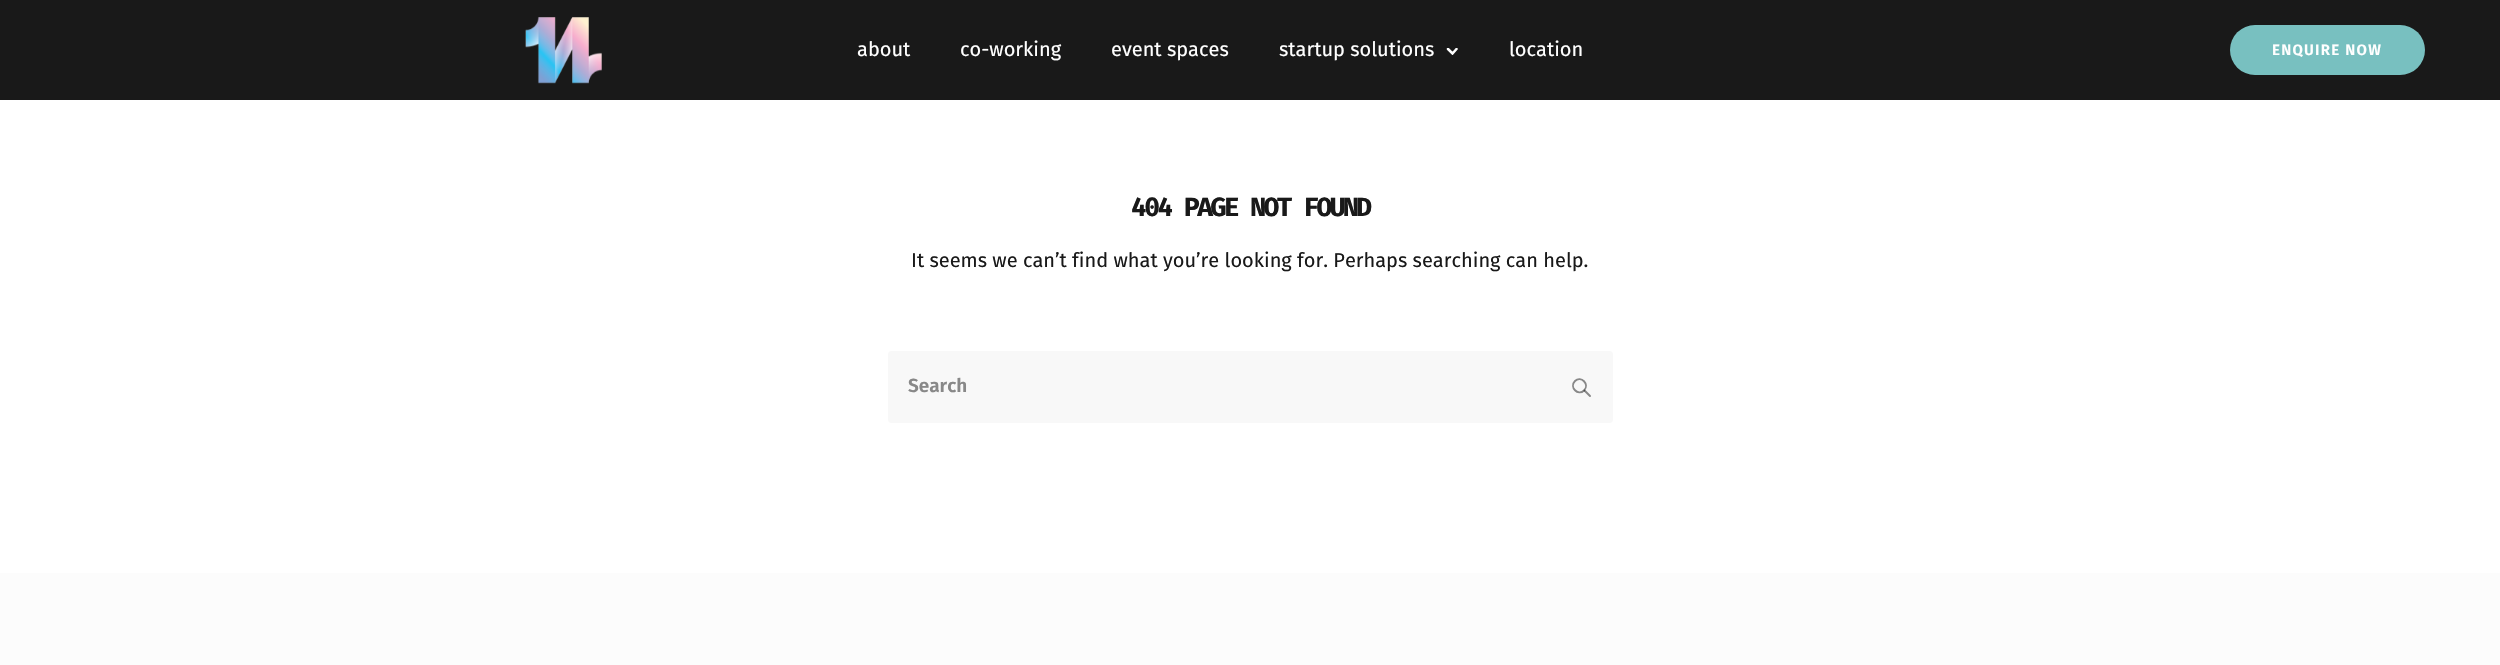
void draw(SkCanvas* canvas) {
    SkPaint paint;
    paint.setAntiAlias(true);
    auto face = [&](const char* family, int weight, float size, bool italic = false) {
        SkFontStyle style(weight, SkFontStyle::kNormal_Width,
            italic ? SkFontStyle::kItalic_Slant : SkFontStyle::kUpright_Slant);
        SkFont result(fontMgr->matchFamilyStyle(family, style), size);
        result.setSubpixel(true);
        return result;
    };
    auto write = [&](const char* s, float x, float y, const SkFont& font, SkColor color) {
        SkPaint ink(SkColor4f::FromColor(color));
        ink.setAntiAlias(true);
        canvas->drawString(s, x, y, font, ink);
    };
    auto writeSpaced = [&](const char* s, float x, float y, const SkFont& font, const SkPaint& ink, float letter, float word) {
        std::vector<SkGlyphID> glyphs(font.countText(s, strlen(s), SkTextEncoding::kUTF8));
        std::vector<float> xs(glyphs.size());
        font.textToGlyphs(s, strlen(s), SkTextEncoding::kUTF8, glyphs);
        font.getXPos(glyphs, xs, x);
        float extra = 0;
        for (size_t i = 0; i < glyphs.size(); i++) {
            xs[i] += extra;
            extra += letter + word * (glyphs[i] == font.unicharToGlyph(' '));
        }
        canvas->drawTextBlob(SkTextBlob::MakeFromPosHGlyphs(glyphs, xs, y, font), 0, 0, ink);
    };
    auto block = [&](float x, float y, float w, float h, SkColor color) {
        SkPaint ink(SkColor4f::FromColor(color));
        ink.setAntiAlias(true);
        canvas->drawRect(SkRect::MakeXYWH(x, y, w, h), ink);
    };
    auto card = [&](float x, float y, float w, float h, float radius, SkColor color) {
        SkPaint ink(SkColor4f::FromColor(color));
        ink.setAntiAlias(true);
        canvas->drawRoundRect(SkRect::MakeXYWH(x, y, w, h), radius, radius, ink);
    };
    auto paste = [&](const char* path, float x, float y, float w, float h) {
        auto image = SkImages::DeferredFromEncodedData(SkData::MakeFromFileName(path));
        canvas->drawImageRect(image, SkRect::MakeXYWH(x, y, w, h), SkSamplingOptions());
    };
    canvas->clear(SK_ColorWHITE);
    block(0, 0, 2500, 100, SkColorSetRGB(25, 25, 25));
    paste("pic1.png", 525, 17, 77, 67);
    auto kFont1 = face("Fira Sans", 400, 20);
    write("about", 857, 56, kFont1, SK_ColorWHITE);
    write("co-working", 960, 56, kFont1, SK_ColorWHITE);
    write("event spaces", 1111, 56, kFont1, SK_ColorWHITE);
    write("startup solutions", 1279, 56, kFont1, SK_ColorWHITE);
    canvas->save();
    canvas->clipRect(SkRect::MakeXYWH(1446, 48, 13, 7));
    paint.setStyle(SkPaint::kStroke_Style);
    paint.setStrokeWidth(2.5f);
    paint.setStrokeCap(SkPaint::kRound_Cap);
    paint.setColor(SK_ColorWHITE);
    canvas->drawPath(SkPathBuilder().moveTo(1456.5f, 49).lineTo(1452.5f, 53.5f).lineTo(1448, 49).detach(), paint);
    canvas->restore();
    write("location", 1509, 56, kFont1, SK_ColorWHITE);
    card(2230, 25, 195, 50, 25, SkColorSetRGB(120, 192, 192));
    auto kFont2 = face("Fira Sans", 600, 15);
    paint.setStyle(SkPaint::kFill_Style);
    writeSpaced("ENQUIRE NOW", 2272, 55, kFont2, paint, 1.25f, 0);
    auto kFont3 = face("Fira Mono", 700, 26.25f);
    paint.setColor(SkColorSetRGB(25, 25, 25));
    writeSpaced("404 PAGE NOT FOUND", 1131, 216, kFont3, paint, -2.5f, 0);
    write("It seems we can’t find what you’re looking for. Perhaps searching can help.", 911, 267, kFont1, SkColorSetRGB(25, 25, 25));
    card(888, 351, 725, 72, 4, SkColorSetRGB(248, 248, 248));
    auto kFont4 = face("Fira Sans", 600, 19);
    write("Search", 908, 392, kFont4, SkColorSetRGB(136, 136, 136));
    paint.setStyle(SkPaint::kStroke_Style);
    paint.setStrokeWidth(1.9f);
    paint.setStrokeCap(SkPaint::kButt_Cap);
    paint.setColor(SkColorSetRGB(136, 136, 136));
    canvas->drawPath(SkPathBuilder().moveTo(1575, 381).cubicTo(1581, 375, 1590, 384.5f, 1584, 390.5f).cubicTo(1578, 396.5f, 1569, 387, 1575, 381).close().detach(), paint);
    paint.setStrokeCap(SkPaint::kRound_Cap);
    paint.setColor(SkColorSetARGB(115, 0, 0, 0));
    canvas->drawPath(SkPathBuilder().moveTo(1584.5f, 390.5f).lineTo(1590, 396).detach(), paint);
    block(0, 573, 2500, 92, SkColorSetRGB(252, 252, 252));
}
